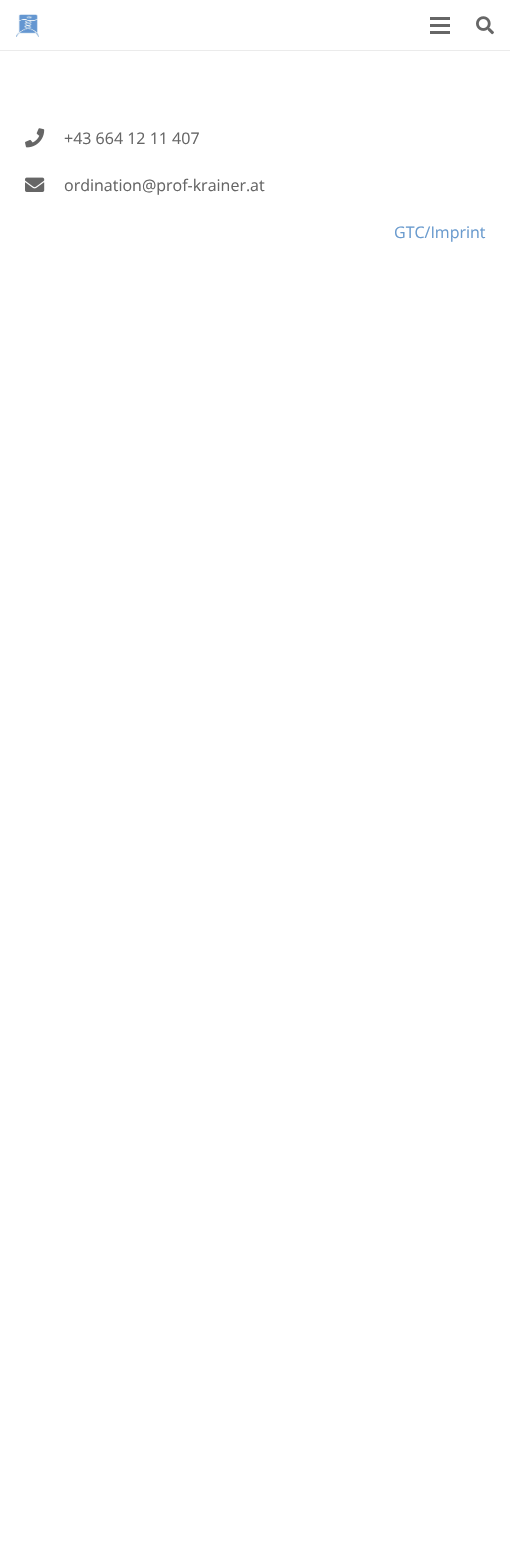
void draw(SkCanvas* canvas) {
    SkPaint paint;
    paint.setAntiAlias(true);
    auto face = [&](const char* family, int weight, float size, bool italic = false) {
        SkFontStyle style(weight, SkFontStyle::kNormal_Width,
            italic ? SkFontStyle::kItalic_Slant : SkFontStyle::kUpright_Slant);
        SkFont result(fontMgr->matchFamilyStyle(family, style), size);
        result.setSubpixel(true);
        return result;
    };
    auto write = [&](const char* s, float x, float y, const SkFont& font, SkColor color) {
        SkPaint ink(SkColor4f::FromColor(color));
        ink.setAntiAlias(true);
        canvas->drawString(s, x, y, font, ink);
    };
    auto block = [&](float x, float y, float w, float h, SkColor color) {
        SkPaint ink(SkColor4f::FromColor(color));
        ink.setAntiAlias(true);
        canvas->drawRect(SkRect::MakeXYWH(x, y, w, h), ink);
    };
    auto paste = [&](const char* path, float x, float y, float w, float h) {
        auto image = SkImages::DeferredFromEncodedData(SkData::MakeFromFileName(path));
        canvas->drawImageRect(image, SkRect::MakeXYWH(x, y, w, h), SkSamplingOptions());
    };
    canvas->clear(SK_ColorWHITE);
    block(0, 50, 510, 1, SkColorSetRGB(235, 235, 235));
    paste("pic1.png", 16, 14, 23, 23);
    block(430, 24, 20, 3, SkColorSetRGB(102, 102, 102));
    block(430, 17, 20, 3, SkColorSetRGB(102, 102, 102));
    block(430, 31, 20, 3, SkColorSetRGB(102, 102, 102));
    paste("pic2.png", 476, 16, 18, 19);
    paste("pic3.png", 25, 128, 20, 20);
    auto kFont1 = face("Open Sans", 400, 16);
    write("+43 664 12 11 407", 64, 144, kFont1, SkColorSetRGB(102, 102, 102));
    paste("pic4.png", 25, 177, 20, 15);
    write("ordination@prof-krainer.at", 64, 191, kFont1, SkColorSetRGB(102, 102, 102));
    write("GTC/Imprint", 394, 238, kFont1, SkColorSetRGB(106, 155, 206));
}
